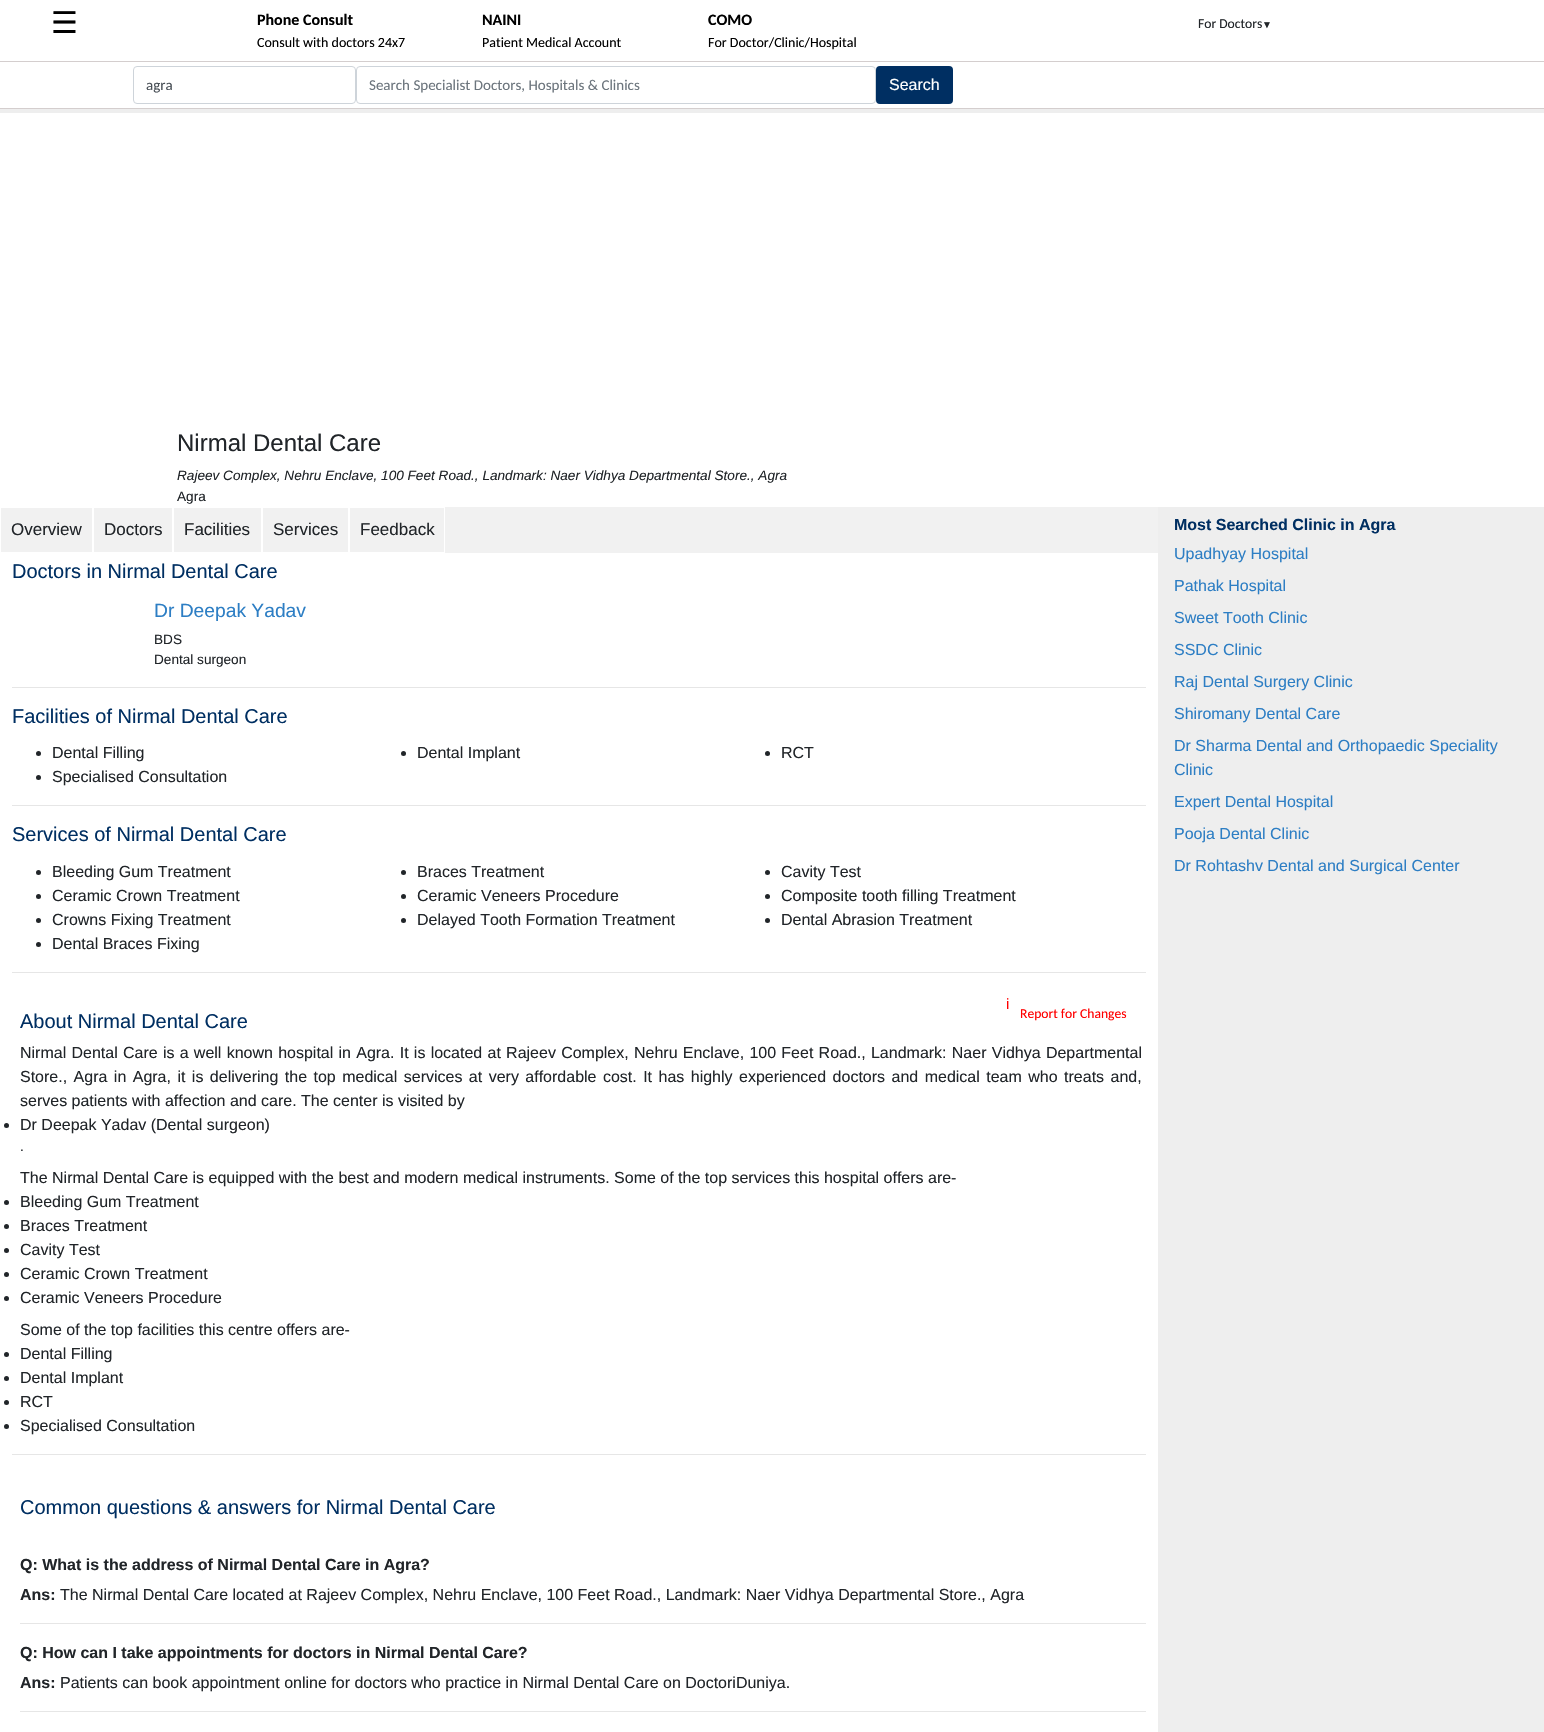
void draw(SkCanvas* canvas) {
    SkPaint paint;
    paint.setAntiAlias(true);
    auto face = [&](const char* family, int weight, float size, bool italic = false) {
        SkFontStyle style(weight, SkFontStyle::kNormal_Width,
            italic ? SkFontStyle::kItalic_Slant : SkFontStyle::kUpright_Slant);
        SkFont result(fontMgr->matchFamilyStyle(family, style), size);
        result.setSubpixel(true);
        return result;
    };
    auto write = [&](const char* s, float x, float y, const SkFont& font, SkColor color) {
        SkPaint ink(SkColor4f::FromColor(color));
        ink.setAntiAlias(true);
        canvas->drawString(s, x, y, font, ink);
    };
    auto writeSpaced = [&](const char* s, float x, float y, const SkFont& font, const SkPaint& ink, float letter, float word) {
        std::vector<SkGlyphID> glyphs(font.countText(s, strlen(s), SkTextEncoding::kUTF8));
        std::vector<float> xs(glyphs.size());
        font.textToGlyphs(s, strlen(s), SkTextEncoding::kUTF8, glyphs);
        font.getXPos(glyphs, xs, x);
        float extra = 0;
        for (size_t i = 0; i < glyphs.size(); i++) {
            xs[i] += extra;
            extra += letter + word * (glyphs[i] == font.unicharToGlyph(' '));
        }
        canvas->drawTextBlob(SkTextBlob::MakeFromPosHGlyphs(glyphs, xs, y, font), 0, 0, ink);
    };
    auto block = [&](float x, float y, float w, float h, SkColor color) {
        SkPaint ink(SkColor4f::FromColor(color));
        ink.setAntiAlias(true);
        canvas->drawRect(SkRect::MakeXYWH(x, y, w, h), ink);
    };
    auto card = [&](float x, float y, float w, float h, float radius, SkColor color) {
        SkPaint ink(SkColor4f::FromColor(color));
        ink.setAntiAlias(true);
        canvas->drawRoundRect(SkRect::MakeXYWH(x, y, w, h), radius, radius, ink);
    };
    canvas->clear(SK_ColorWHITE);
    auto kFont1 = face("DejaVu Sans", 400, 30);
    write("☰", 51, 33, kFont1, SK_ColorBLACK);
    auto kFont2 = face("Carlito", 700, 16);
    write("Phone Consult", 257, 25, kFont2, SK_ColorBLACK);
    auto kFont3 = face("Carlito", 400, 14);
    write("Consult with doctors 24x7", 257, 47, kFont3, SK_ColorBLACK);
    write("NAINI", 482, 25, kFont2, SK_ColorBLACK);
    write("Patient Medical Account", 482, 47, kFont3, SK_ColorBLACK);
    write("COMO", 708, 25, kFont2, SK_ColorBLACK);
    write("For Doctor/Clinic/Hospital", 708, 47, kFont3, SK_ColorBLACK);
    auto kFont4 = face("Carlito", 400, 13.6f);
    write("For Doctors", 1198, 28, kFont4, SkColorSetRGB(33, 37, 41));
    auto kFont5 = face("Liberation Sans", 400, 10);
    write("▼", 1262, 28, kFont5, SkColorSetRGB(33, 37, 41));
    block(0, 61, 1544, 1, SkColorSetRGB(212, 206, 206));
    block(0, 108, 1544, 1, SkColorSetRGB(212, 206, 206));
    paint.setStyle(SkPaint::kStroke_Style);
    paint.setStrokeWidth(1);
    paint.setColor(SkColorSetRGB(206, 212, 218));
    canvas->drawRoundRect(SkRect::MakeXYWH(133.5f, 66.5f, 222, 37), 3.5f, 3.5f, paint);
    auto kFont6 = face("Carlito", 400, 15);
    write("agra", 146, 90, kFont6, SkColorSetRGB(73, 80, 87));
    canvas->drawRoundRect(SkRect::MakeXYWH(356.5f, 66.5f, 519, 37), 3.5f, 3.5f, paint);
    write("Search Specialist Doctors, Hospitals & Clinics", 369, 90, kFont6, SkColorSetRGB(108, 117, 125));
    card(876, 66, 77, 38, 4, SkColorSetRGB(0, 47, 98));
    auto kFont7 = face("Liberation Sans", 400, 16);
    write("Search", 889, 90, kFont7, SK_ColorWHITE);
    block(0, 109, 1544, 1623, SkColorSetRGB(238, 238, 238));
    block(0, 113, 1544, 394, SK_ColorWHITE);
    auto kFont8 = face("Liberation Sans", 400, 24);
    write("Nirmal Dental Care", 177, 451, kFont8, SkColorSetRGB(33, 37, 41));
    auto kFont9 = face("Liberation Sans", 400, 13.6f, true);
    write("Rajeev Complex, Nehru Enclave, 100 Feet Road., Landmark: Naer Vidhya Departmental Store., Agra", 177, 480, kFont9, SkColorSetRGB(33, 37, 41));
    auto kFont10 = face("Liberation Sans", 400, 13.6f);
    write("Agra", 177, 501, kFont10, SkColorSetRGB(33, 37, 41));
    block(0, 553, 1158, 1179, SK_ColorWHITE);
    block(1, 507, 1157, 46, SkColorSetRGB(241, 241, 241));
    paint.setColor(SK_ColorWHITE);
    canvas->drawRect(SkRect::MakeXYWH(0.5f, 507.5f, 92, 45), paint);
    auto kFont11 = face("Liberation Sans", 400, 17);
    write("Overview", 11, 535, kFont11, SkColorSetRGB(33, 37, 41));
    canvas->drawRect(SkRect::MakeXYWH(93.5f, 507.5f, 79, 45), paint);
    write("Doctors", 104, 535, kFont11, SkColorSetRGB(33, 37, 41));
    canvas->drawRect(SkRect::MakeXYWH(173.5f, 507.5f, 88, 45), paint);
    write("Facilities", 184, 535, kFont11, SkColorSetRGB(33, 37, 41));
    canvas->drawRect(SkRect::MakeXYWH(262.5f, 507.5f, 86, 45), paint);
    write("Services", 273, 535, kFont11, SkColorSetRGB(33, 37, 41));
    canvas->drawRect(SkRect::MakeXYWH(349.5f, 507.5f, 95, 45), paint);
    write("Feedback", 360, 535, kFont11, SkColorSetRGB(33, 37, 41));
    auto kFont12 = face("Liberation Sans", 400, 20);
    write("Doctors in Nirmal Dental Care", 12, 578, kFont12, SkColorSetRGB(0, 47, 98));
    auto kFont13 = face("Liberation Sans", 400, 19.25f);
    write("Dr Deepak Yadav", 154, 617, kFont13, SkColorSetRGB(45, 126, 196));
    write("BDS", 154, 644, kFont10, SkColorSetRGB(33, 37, 41));
    write("Dental surgeon", 154, 664, kFont10, SkColorSetRGB(33, 37, 41));
    block(12, 687, 1134, 1, SkColorSetRGB(230, 230, 230));
    write("Facilities of Nirmal Dental Care", 12, 723, kFont12, SkColorSetRGB(0, 47, 98));
    paint.setStyle(SkPaint::kFill_Style);
    paint.setColor(SkColorSetRGB(33, 37, 41));
    canvas->drawCircle(38.5f, 753.5f, 2.5f, paint);
    write("Dental Filling", 52, 758, kFont7, SkColorSetRGB(33, 37, 41));
    canvas->drawCircle(403.5f, 753.5f, 2.5f, paint);
    write("Dental Implant", 417, 758, kFont7, SkColorSetRGB(33, 37, 41));
    canvas->drawCircle(767.5f, 753.5f, 2.5f, paint);
    write("RCT", 781, 758, kFont7, SkColorSetRGB(33, 37, 41));
    canvas->drawCircle(38.5f, 777.5f, 2.5f, paint);
    write("Specialised Consultation", 52, 782, kFont7, SkColorSetRGB(33, 37, 41));
    block(12, 805, 1134, 1, SkColorSetRGB(230, 230, 230));
    write("Services of Nirmal Dental Care", 12, 841, kFont12, SkColorSetRGB(0, 47, 98));
    canvas->drawCircle(38.5f, 872.5f, 2.5f, paint);
    write("Bleeding Gum Treatment", 52, 877, kFont7, SkColorSetRGB(33, 37, 41));
    canvas->drawCircle(403.5f, 872.5f, 2.5f, paint);
    write("Braces Treatment", 417, 877, kFont7, SkColorSetRGB(33, 37, 41));
    canvas->drawCircle(767.5f, 872.5f, 2.5f, paint);
    write("Cavity Test", 781, 877, kFont7, SkColorSetRGB(33, 37, 41));
    canvas->drawCircle(38.5f, 896.5f, 2.5f, paint);
    write("Ceramic Crown Treatment", 52, 901, kFont7, SkColorSetRGB(33, 37, 41));
    canvas->drawCircle(403.5f, 896.5f, 2.5f, paint);
    write("Ceramic Veneers Procedure", 417, 901, kFont7, SkColorSetRGB(33, 37, 41));
    canvas->drawCircle(767.5f, 896.5f, 2.5f, paint);
    write("Composite tooth filling Treatment", 781, 901, kFont7, SkColorSetRGB(33, 37, 41));
    canvas->drawCircle(38.5f, 920.5f, 2.5f, paint);
    write("Crowns Fixing Treatment", 52, 925, kFont7, SkColorSetRGB(33, 37, 41));
    canvas->drawCircle(403.5f, 920.5f, 2.5f, paint);
    write("Delayed Tooth Formation Treatment", 417, 925, kFont7, SkColorSetRGB(33, 37, 41));
    canvas->drawCircle(767.5f, 920.5f, 2.5f, paint);
    write("Dental Abrasion Treatment", 781, 925, kFont7, SkColorSetRGB(33, 37, 41));
    canvas->drawCircle(38.5f, 944.5f, 2.5f, paint);
    write("Dental Braces Fixing", 52, 949, kFont7, SkColorSetRGB(33, 37, 41));
    block(12, 972, 1134, 1, SkColorSetRGB(230, 230, 230));
    write("About Nirmal Dental Care", 20, 1028, kFont12, SkColorSetRGB(0, 47, 98));
    auto kFont14 = face("Liberation Sans", 400, 15);
    write("i", 1006, 1009, kFont14, SkColorSetRGB(255, 0, 0));
    write("Report for Changes", 1020, 1018, kFont4, SkColorSetRGB(255, 0, 0));
    writeSpaced("Nirmal Dental Care is a well known hospital in Agra. It is located at Rajeev Complex, Nehru Enclave, 100 Feet Road., Landmark: Naer Vidhya Departmental", 20, 1058, kFont7, paint, 0, 0.8f);
    writeSpaced("Store., Agra in Agra, it is delivering the top medical services at very affordable cost. It has highly experienced doctors and medical team who treats and,", 20, 1082, kFont7, paint, 0, 2);
    write("serves patients with affection and care. The center is visited by", 20, 1106, kFont7, SkColorSetRGB(33, 37, 41));
    canvas->drawCircle(6.5f, 1125.5f, 2.5f, paint);
    write("Dr Deepak Yadav (Dental surgeon)", 20, 1130, kFont7, SkColorSetRGB(33, 37, 41));
    write(".", 20, 1151, kFont10, SkColorSetRGB(33, 37, 41));
    write("The Nirmal Dental Care is equipped with the best and modern medical instruments. Some of the top services this hospital offers are-", 20, 1183, kFont7, SkColorSetRGB(33, 37, 41));
    canvas->drawCircle(6.5f, 1202.5f, 2.5f, paint);
    write("Bleeding Gum Treatment", 20, 1207, kFont7, SkColorSetRGB(33, 37, 41));
    canvas->drawCircle(6.5f, 1226.5f, 2.5f, paint);
    write("Braces Treatment", 20, 1231, kFont7, SkColorSetRGB(33, 37, 41));
    canvas->drawCircle(6.5f, 1250.5f, 2.5f, paint);
    write("Cavity Test", 20, 1255, kFont7, SkColorSetRGB(33, 37, 41));
    canvas->drawCircle(6.5f, 1274.5f, 2.5f, paint);
    write("Ceramic Crown Treatment", 20, 1279, kFont7, SkColorSetRGB(33, 37, 41));
    canvas->drawCircle(6.5f, 1298.5f, 2.5f, paint);
    write("Ceramic Veneers Procedure", 20, 1303, kFont7, SkColorSetRGB(33, 37, 41));
    write("Some of the top facilities this centre offers are-", 20, 1335, kFont7, SkColorSetRGB(33, 37, 41));
    canvas->drawCircle(6.5f, 1354.5f, 2.5f, paint);
    write("Dental Filling", 20, 1359, kFont7, SkColorSetRGB(33, 37, 41));
    canvas->drawCircle(6.5f, 1378.5f, 2.5f, paint);
    write("Dental Implant", 20, 1383, kFont7, SkColorSetRGB(33, 37, 41));
    canvas->drawCircle(6.5f, 1402.5f, 2.5f, paint);
    write("RCT", 20, 1407, kFont7, SkColorSetRGB(33, 37, 41));
    canvas->drawCircle(6.5f, 1426.5f, 2.5f, paint);
    write("Specialised Consultation", 20, 1431, kFont7, SkColorSetRGB(33, 37, 41));
    block(12, 1454, 1134, 1, SkColorSetRGB(230, 230, 230));
    write("Common questions & answers for Nirmal Dental Care", 20, 1514, kFont12, SkColorSetRGB(0, 47, 98));
    auto kFont15 = face("Liberation Sans", 700, 16);
    write("Q: What is the address of Nirmal Dental Care in Agra?", 20, 1570, kFont15, SkColorSetRGB(33, 37, 41));
    write("Ans:", 20, 1600, kFont15, SkColorSetRGB(33, 37, 41));
    write("The Nirmal Dental Care located at Rajeev Complex, Nehru Enclave, 100 Feet Road., Landmark: Naer Vidhya Departmental Store., Agra", 60, 1600, kFont7, SkColorSetRGB(33, 37, 41));
    block(20, 1623, 1126, 1, SkColorSetRGB(230, 230, 230));
    write("Q: How can I take appointments for doctors in Nirmal Dental Care?", 20, 1658, kFont15, SkColorSetRGB(33, 37, 41));
    write("Ans:", 20, 1688, kFont15, SkColorSetRGB(33, 37, 41));
    write("Patients can book appointment online for doctors who practice in Nirmal Dental Care on DoctoriDuniya.", 60, 1688, kFont7, SkColorSetRGB(33, 37, 41));
    block(20, 1711, 1126, 1, SkColorSetRGB(230, 230, 230));
    write("Most Searched Clinic in Agra", 1174, 530, kFont15, SkColorSetRGB(0, 47, 98));
    write("Upadhyay Hospital", 1174, 559, kFont7, SkColorSetRGB(45, 126, 196));
    write("Pathak Hospital", 1174, 591, kFont7, SkColorSetRGB(45, 126, 196));
    write("Sweet Tooth Clinic", 1174, 623, kFont7, SkColorSetRGB(45, 126, 196));
    write("SSDC Clinic", 1174, 655, kFont7, SkColorSetRGB(45, 126, 196));
    write("Raj Dental Surgery Clinic", 1174, 687, kFont7, SkColorSetRGB(45, 126, 196));
    write("Shiromany Dental Care", 1174, 719, kFont7, SkColorSetRGB(45, 126, 196));
    write("Dr Sharma Dental and Orthopaedic Speciality", 1174, 751, kFont7, SkColorSetRGB(45, 126, 196));
    write("Clinic", 1174, 775, kFont7, SkColorSetRGB(45, 126, 196));
    write("Expert Dental Hospital", 1174, 807, kFont7, SkColorSetRGB(45, 126, 196));
    write("Pooja Dental Clinic", 1174, 839, kFont7, SkColorSetRGB(45, 126, 196));
    write("Dr Rohtashv Dental and Surgical Center", 1174, 871, kFont7, SkColorSetRGB(45, 126, 196));
}
